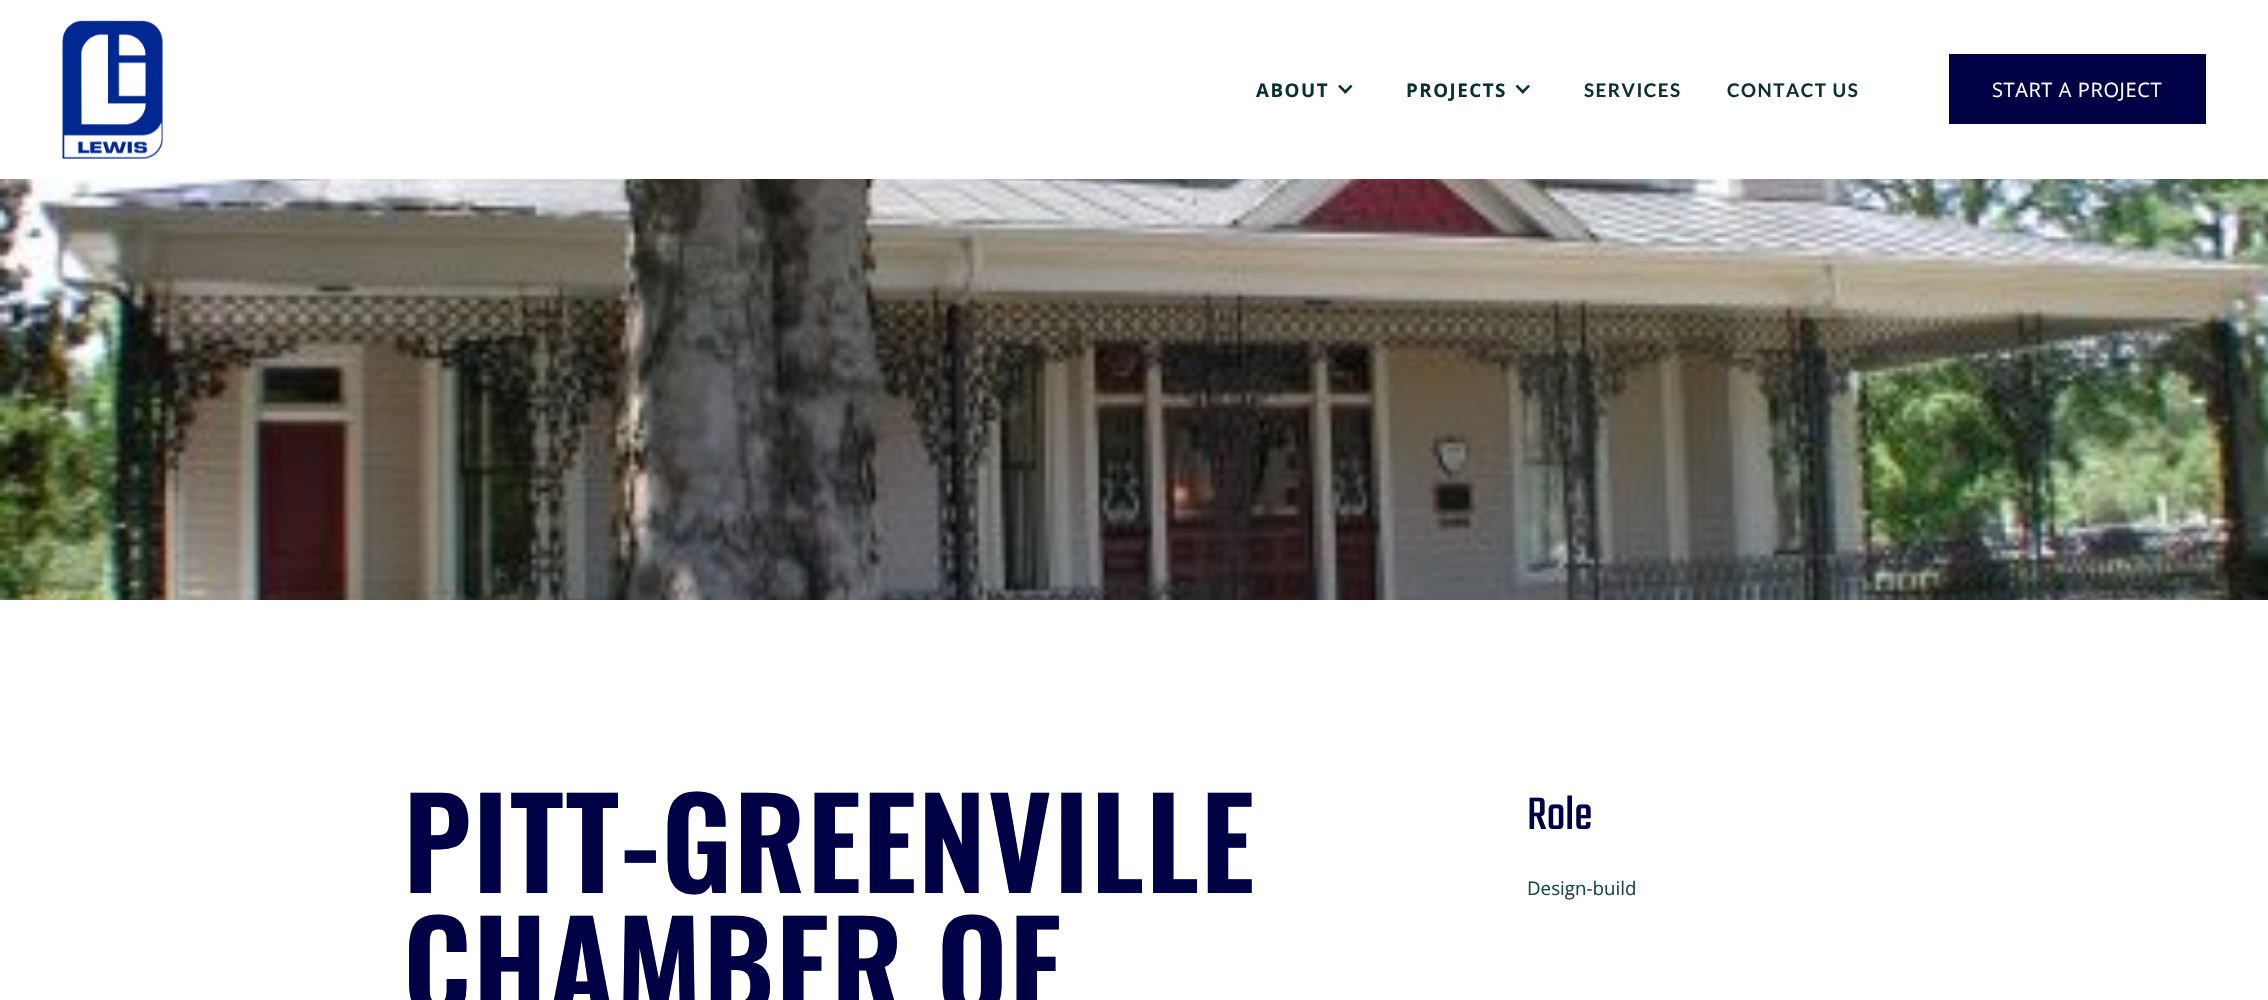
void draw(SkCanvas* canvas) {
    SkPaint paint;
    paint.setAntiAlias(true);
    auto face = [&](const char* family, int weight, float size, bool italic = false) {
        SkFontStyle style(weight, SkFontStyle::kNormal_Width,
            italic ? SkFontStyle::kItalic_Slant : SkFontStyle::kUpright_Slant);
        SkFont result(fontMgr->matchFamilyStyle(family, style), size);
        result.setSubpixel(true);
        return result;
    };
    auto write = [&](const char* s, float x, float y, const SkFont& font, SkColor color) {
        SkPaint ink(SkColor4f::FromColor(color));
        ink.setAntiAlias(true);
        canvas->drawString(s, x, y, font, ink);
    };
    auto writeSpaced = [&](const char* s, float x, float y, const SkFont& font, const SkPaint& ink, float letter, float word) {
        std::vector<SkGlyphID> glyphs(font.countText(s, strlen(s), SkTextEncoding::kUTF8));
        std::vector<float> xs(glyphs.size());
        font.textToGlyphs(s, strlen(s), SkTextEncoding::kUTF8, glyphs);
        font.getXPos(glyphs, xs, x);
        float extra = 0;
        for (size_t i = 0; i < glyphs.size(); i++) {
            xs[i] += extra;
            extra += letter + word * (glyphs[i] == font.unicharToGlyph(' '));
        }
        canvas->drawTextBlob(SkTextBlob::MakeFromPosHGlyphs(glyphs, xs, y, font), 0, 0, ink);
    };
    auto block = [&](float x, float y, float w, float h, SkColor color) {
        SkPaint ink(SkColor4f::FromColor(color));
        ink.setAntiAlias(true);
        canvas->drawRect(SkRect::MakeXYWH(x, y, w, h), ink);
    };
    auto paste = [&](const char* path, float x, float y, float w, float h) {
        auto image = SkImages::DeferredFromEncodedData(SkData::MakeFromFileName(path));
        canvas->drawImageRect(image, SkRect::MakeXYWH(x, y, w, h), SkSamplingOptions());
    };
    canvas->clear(SK_ColorWHITE);
    paste("pic1.png", 62, 20, 101, 139);
    auto kFont1 = face("Open Sans", 700, 18.75f);
    paint.setColor(SkColorSetRGB(12, 49, 51));
    writeSpaced("ABOUT", 1256, 97, kFont1, paint, 1.5f, 0);
    paste("pic2.png", 1338, 84, 15, 10);
    writeSpaced("PROJECTS", 1406, 97, kFont1, paint, 1.5f, 0);
    paste("pic3.png", 1515, 84, 15, 10);
    auto kFont2 = face("Lato", 700, 18.75f);
    writeSpaced("SERVICES", 1584, 97, kFont2, paint, 1.5f, 0);
    writeSpaced("CONTACT US", 1727, 97, kFont2, paint, 1.5f, 0);
    block(1949, 54, 257, 70, SkColorSetRGB(0, 0, 68));
    auto kFont3 = face("Open Sans", 400, 20);
    paint.setColor(SK_ColorWHITE);
    writeSpaced("START A PROJECT", 1992, 97, kFont3, paint, 0.6f, 0);
    paste("pic4.png", 0, 179, 2268, 421);
    auto kFont4 = face("Oswald", 600, 123.75f);
    paint.setColor(SkColorSetRGB(0, 0, 68));
    writeSpaced("PITT-GREENVILLE", 403, 893, kFont4, paint, 1.25f, 0);
    writeSpaced("CHAMBER OF", 403, 1016, kFont4, paint, 1.25f, 0);
    auto kFont5 = face("Teko", 400, 50);
    write("Role", 1527, 829, kFont5, SkColorSetRGB(0, 0, 68));
    auto kFont6 = face("Open Sans", 400, 18.75f);
    write("Design-build", 1527, 895, kFont6, SkColorSetRGB(22, 71, 74));
}
